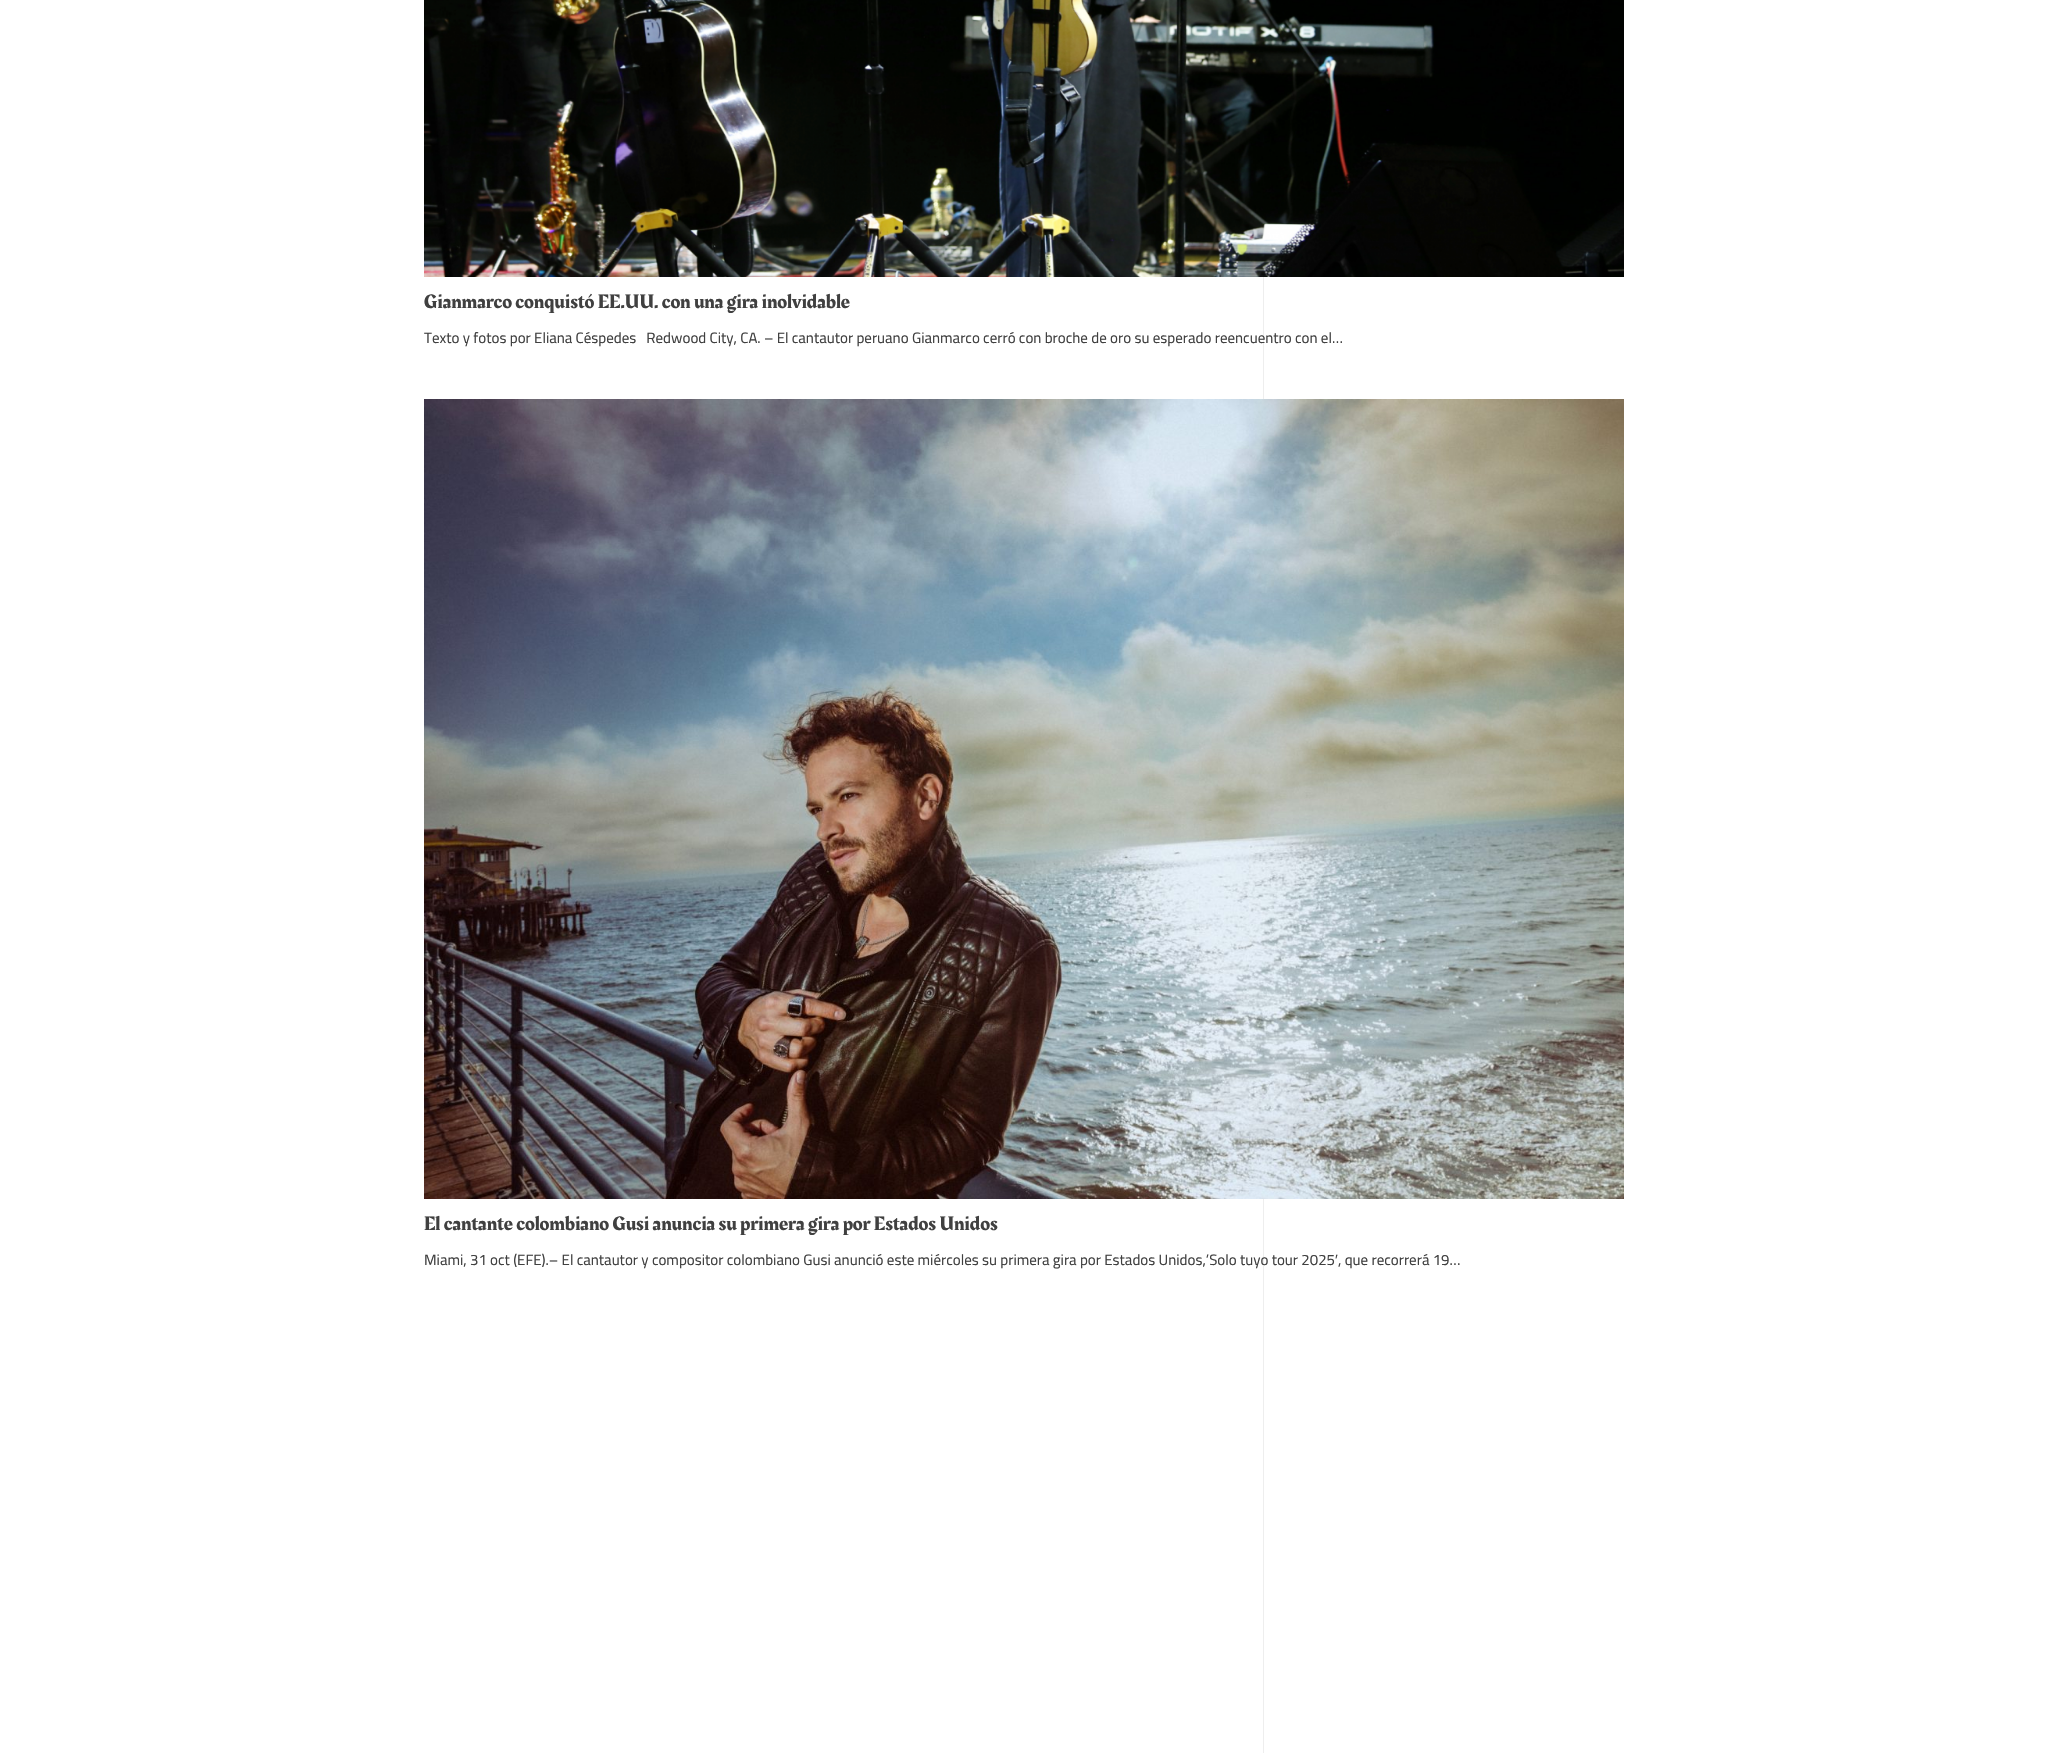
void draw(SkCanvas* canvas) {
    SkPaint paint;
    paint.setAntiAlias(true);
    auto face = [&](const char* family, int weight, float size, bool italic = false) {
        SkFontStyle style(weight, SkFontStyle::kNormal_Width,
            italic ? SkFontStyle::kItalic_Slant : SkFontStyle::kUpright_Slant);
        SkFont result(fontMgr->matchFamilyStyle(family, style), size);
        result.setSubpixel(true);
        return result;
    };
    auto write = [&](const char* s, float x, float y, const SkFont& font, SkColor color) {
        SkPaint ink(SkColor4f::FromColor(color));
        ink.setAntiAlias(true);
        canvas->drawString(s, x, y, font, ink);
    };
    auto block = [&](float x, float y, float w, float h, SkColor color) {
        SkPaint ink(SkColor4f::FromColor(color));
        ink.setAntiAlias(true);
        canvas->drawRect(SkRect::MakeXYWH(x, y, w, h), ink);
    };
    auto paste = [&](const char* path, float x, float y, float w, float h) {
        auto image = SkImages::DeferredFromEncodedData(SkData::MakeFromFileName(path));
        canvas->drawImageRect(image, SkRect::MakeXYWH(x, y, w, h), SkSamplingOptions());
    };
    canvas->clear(SK_ColorWHITE);
    block(1263, 277, 1, 1476, SkColorSetRGB(238, 238, 238));
    paste("pic1.png", 424, 0, 1200, 277);
    auto kFont1 = face("Rakkas", 400, 20);
    write("Gianmarco conquistó EE.UU. con una gira inolvidable", 424, 308, kFont1, SkColorSetRGB(64, 64, 64));
    auto kFont2 = face("Cairo", 400, 15);
    write("Texto y fotos por Eliana Céspedes   Redwood City, CA. – El cantautor peruano Gianmarco cerró con broche de oro su esperado reencuentro con el…", 424, 343, kFont2, SkColorSetRGB(64, 64, 64));
    paste("pic2.png", 424, 399, 1200, 800);
    write("El cantante colombiano Gusi anuncia su primera gira por Estados Unidos", 424, 1230, kFont1, SkColorSetRGB(64, 64, 64));
    write("Miami, 31 oct (EFE).– El cantautor y compositor colombiano Gusi anunció este miércoles su primera gira por Estados Unidos,’Solo tuyo tour 2025", 424, 1265, kFont2, SkColorSetRGB(64, 64, 64));
    auto kFont3 = face("Liberation Sans", 400, 15);
    write("′", 1335, 1265, kFont3, SkColorSetRGB(64, 64, 64));
    write(", que recorrerá 19…", 1338, 1265, kFont2, SkColorSetRGB(64, 64, 64));
}
